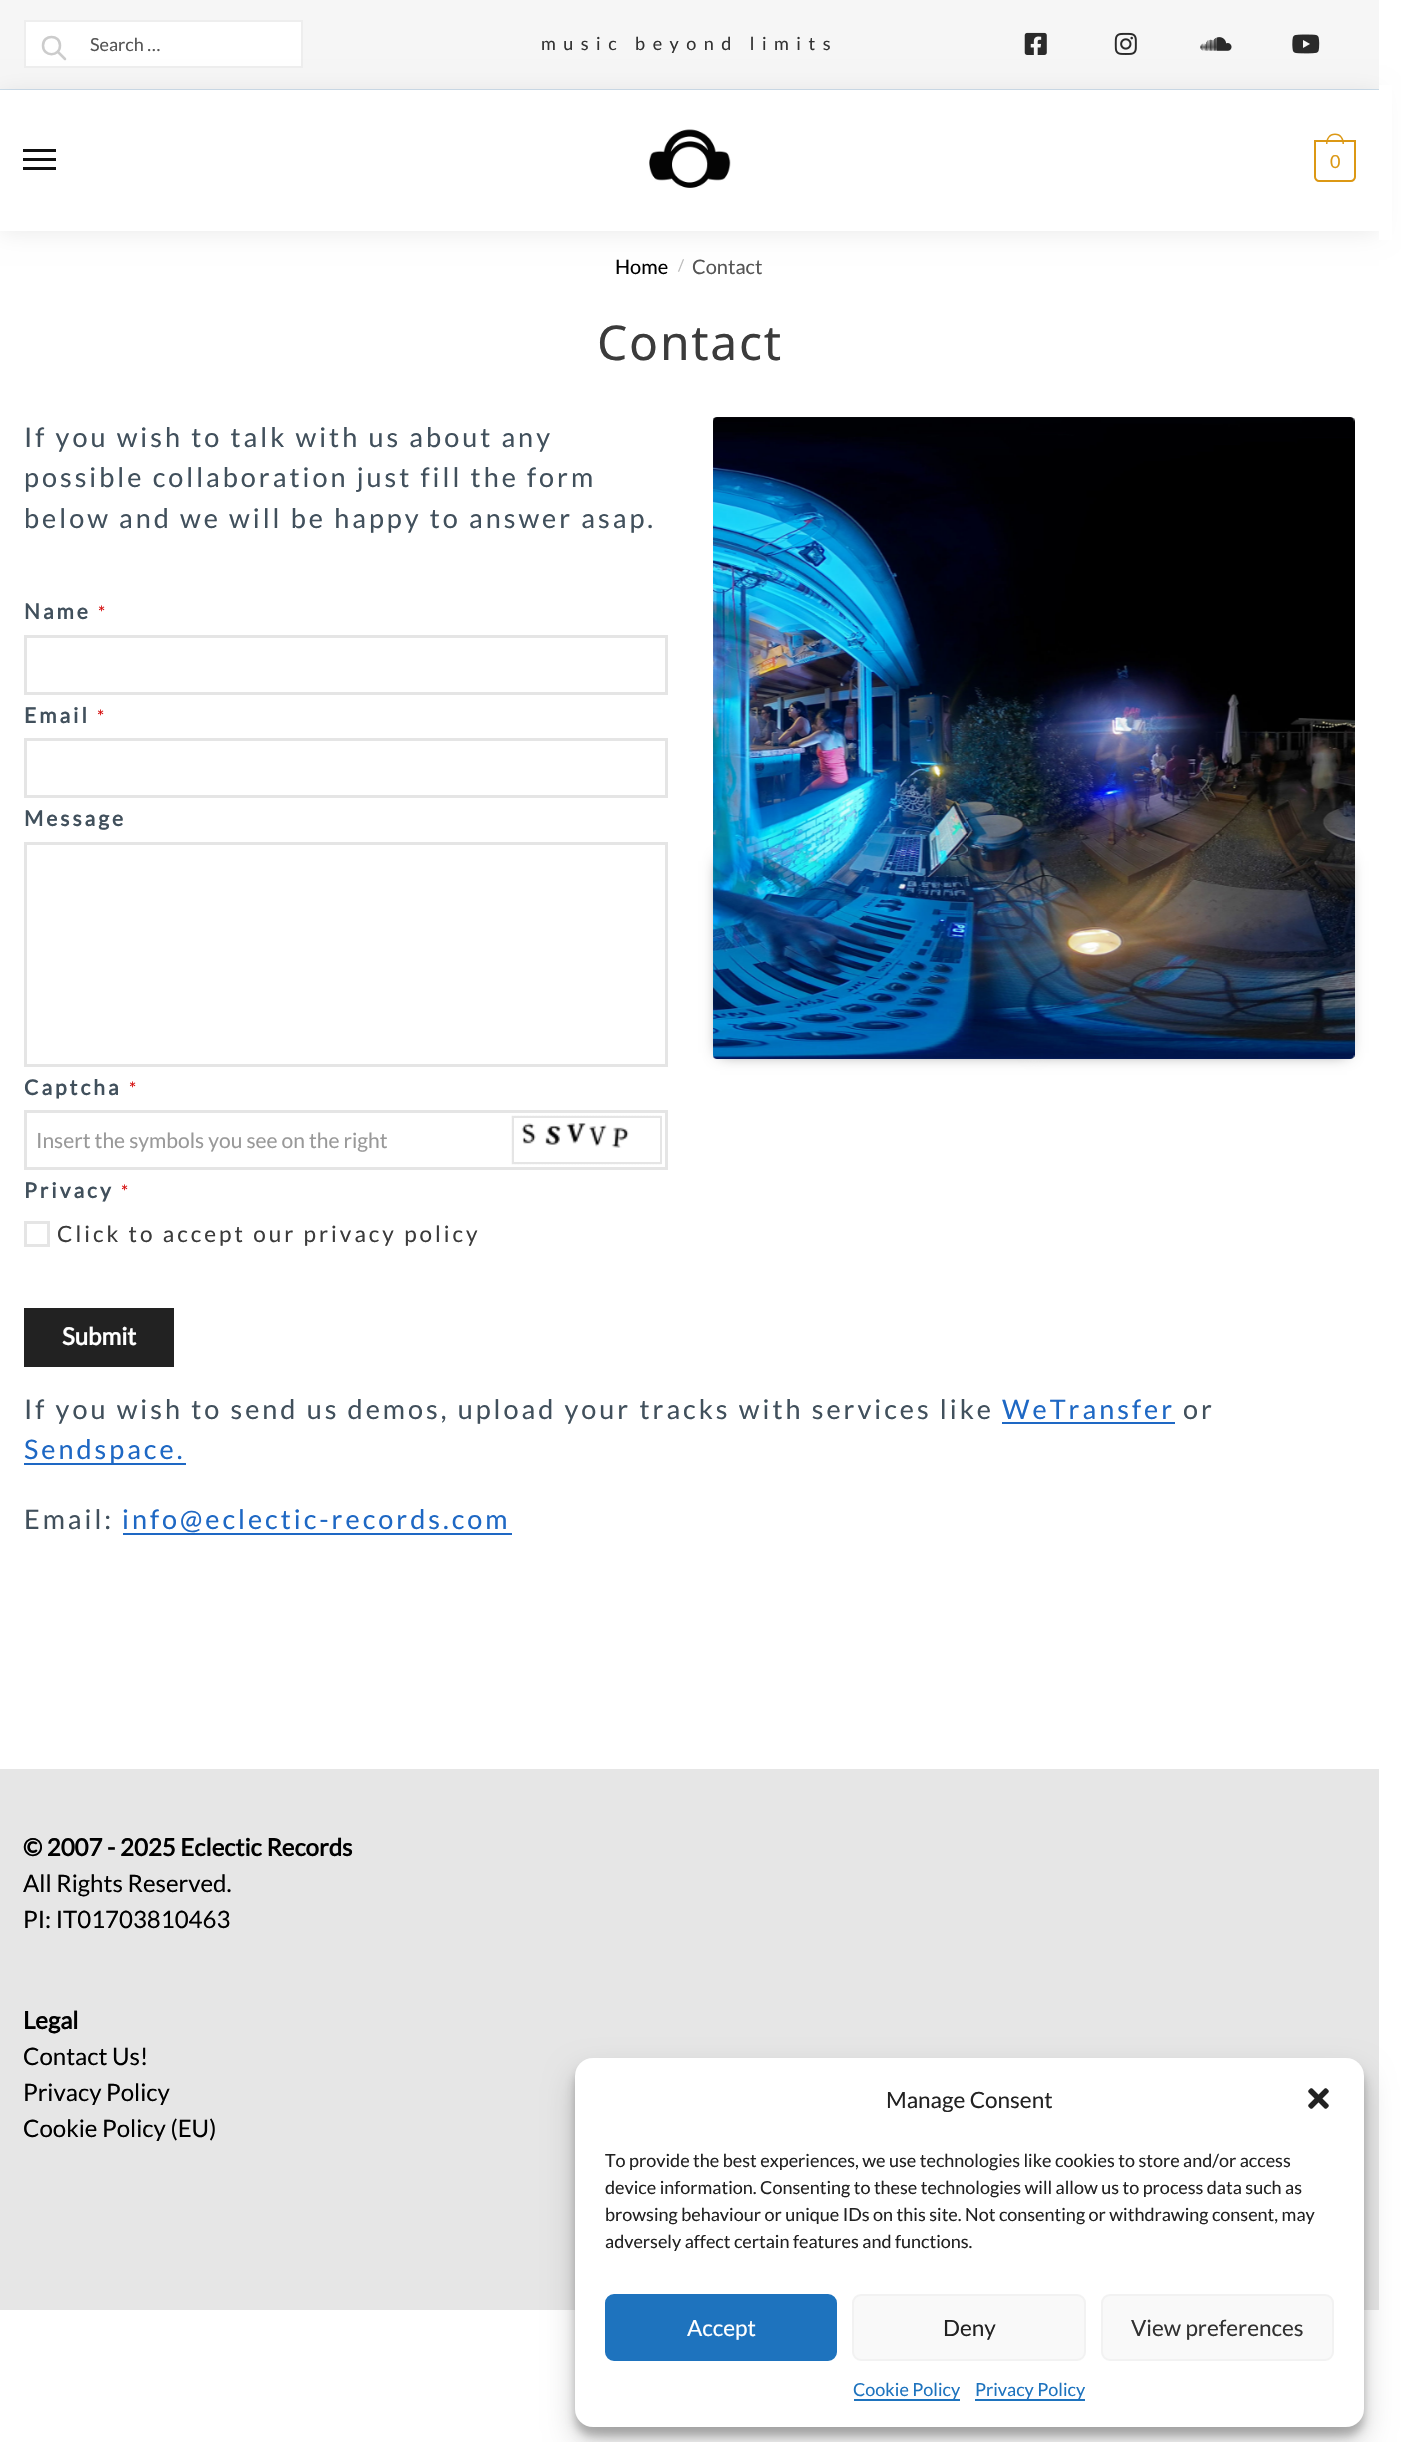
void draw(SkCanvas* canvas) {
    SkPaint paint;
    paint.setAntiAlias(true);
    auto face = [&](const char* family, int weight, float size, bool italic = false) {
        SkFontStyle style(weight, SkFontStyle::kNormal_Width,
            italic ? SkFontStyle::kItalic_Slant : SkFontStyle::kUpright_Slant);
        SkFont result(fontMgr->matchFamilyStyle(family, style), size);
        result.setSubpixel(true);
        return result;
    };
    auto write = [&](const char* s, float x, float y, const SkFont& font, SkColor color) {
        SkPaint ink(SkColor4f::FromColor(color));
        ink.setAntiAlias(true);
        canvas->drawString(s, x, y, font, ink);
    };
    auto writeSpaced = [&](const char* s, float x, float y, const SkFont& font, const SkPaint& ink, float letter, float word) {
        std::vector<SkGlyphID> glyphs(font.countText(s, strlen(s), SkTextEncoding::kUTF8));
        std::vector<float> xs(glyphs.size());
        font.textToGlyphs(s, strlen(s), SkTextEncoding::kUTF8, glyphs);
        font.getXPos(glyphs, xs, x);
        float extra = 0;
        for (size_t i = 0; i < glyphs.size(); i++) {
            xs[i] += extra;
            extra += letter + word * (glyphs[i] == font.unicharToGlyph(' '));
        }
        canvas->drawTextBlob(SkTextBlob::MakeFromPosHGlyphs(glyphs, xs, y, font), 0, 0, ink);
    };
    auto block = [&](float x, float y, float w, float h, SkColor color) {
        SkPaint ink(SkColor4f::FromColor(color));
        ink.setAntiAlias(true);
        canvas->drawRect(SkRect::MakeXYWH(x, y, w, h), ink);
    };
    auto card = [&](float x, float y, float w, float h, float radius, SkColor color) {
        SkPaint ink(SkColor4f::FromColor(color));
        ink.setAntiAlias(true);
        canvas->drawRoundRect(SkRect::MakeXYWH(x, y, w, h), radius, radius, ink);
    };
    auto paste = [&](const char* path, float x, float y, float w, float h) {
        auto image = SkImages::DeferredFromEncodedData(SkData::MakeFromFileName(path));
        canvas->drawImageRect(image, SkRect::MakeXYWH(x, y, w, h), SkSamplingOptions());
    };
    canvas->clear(SK_ColorWHITE);
    block(0, 0, 1379, 89, SkColorSetRGB(246, 246, 246));
    block(0, 89, 1379, 1, SkColorSetRGB(206, 222, 235));
    paint.setColor(SK_ColorWHITE);
    canvas->drawRect(SkRect::MakeXYWH(25, 21, 277, 46), paint);
    paint.setStyle(SkPaint::kStroke_Style);
    paint.setStrokeWidth(2);
    paint.setColor(SkColorSetRGB(238, 238, 238));
    canvas->drawRect(SkRect::MakeXYWH(25, 21, 277, 46), paint);
    paint.setStrokeWidth(2.5f);
    paint.setStrokeCap(SkPaint::kRound_Cap);
    paint.setStrokeJoin(SkPaint::kRound_Join);
    paint.setColor(SkColorSetRGB(204, 204, 204));
    canvas->drawPath(SkPathBuilder().moveTo(65, 59).lineTo(58, 52).moveTo(60, 45.5f).cubicTo(60, 57, 43, 57, 43, 45.5f).cubicTo(43, 34, 60, 34, 60, 45.5f).close().detach(), paint);
    auto kFont1 = face("Lato", 400, 18);
    write("Search …", 90, 51, kFont1, SkColorSetRGB(85, 85, 85));
    paint.setStyle(SkPaint::kFill_Style);
    paint.setColor(SkColorSetRGB(50, 50, 50));
    writeSpaced("music beyond limits", 541, 50, kFont1, paint, 7.5f, 0);
    paste("pic1.png", 1024, 32, 23, 23);
    paste("pic2.png", 1114, 32, 23, 23);
    paste("pic3.png", 1200, 37, 32, 14);
    paste("pic4.png", 1292, 34, 28, 20);
    paint.setColor(SkColorSetARGB(20, 0, 0, 0));
    paint.setMaskFilter(SkMaskFilter::MakeBlur(kNormal_SkBlurStyle, 11));
    canvas->drawRect(SkRect::MakeXYWH(0, 92, 1379, 141), paint);
    paint.setMaskFilter(nullptr);
    block(0, 90, 1379, 141, SK_ColorWHITE);
    block(23, 149, 33, 3, SkColorSetRGB(17, 17, 17));
    block(23, 158, 33, 3, SkColorSetRGB(17, 17, 17));
    block(23, 167, 33, 3, SkColorSetRGB(17, 17, 17));
    paste("pic5.png", 649, 129, 82, 59);
    paint.setStyle(SkPaint::kStroke_Style);
    paint.setStrokeWidth(2);
    paint.setStrokeCap(SkPaint::kButt_Cap);
    paint.setStrokeJoin(SkPaint::kMiter_Join);
    paint.setColor(SkColorSetRGB(220, 152, 20));
    canvas->drawPath(SkPathBuilder().moveTo(1315, 141).lineTo(1355, 141).lineTo(1355, 177).cubicTo(1355, 179, 1353, 181, 1351, 181).lineTo(1319, 181).cubicTo(1317, 181, 1315, 179, 1315, 177).close().detach(), paint);
    paint.setStyle(SkPaint::kFill_Style);
    canvas->drawPath(SkPathBuilder(SkPathFillType::kEvenOdd).moveTo(1335, 133.5f).cubicTo(1341, 133.5f, 1344, 138.5f, 1344, 144).lineTo(1326, 144).cubicTo(1326, 138.5f, 1329, 133.5f, 1335, 133.5f).close().moveTo(1335, 135).cubicTo(1340.5f, 135, 1342.5f, 139.5f, 1342.5f, 144).lineTo(1327.5f, 144).cubicTo(1327.5f, 139.5f, 1329.5f, 135, 1335, 135).close().detach(), paint);
    writeSpaced("0", 1330, 168, kFont1, paint, -1, 0);
    block(1379, 85, 13, 155, SK_ColorWHITE);
    auto kFont2 = face("Lato", 400, 20);
    write("Home", 615, 274, kFont2, SK_ColorBLACK);
    auto kFont3 = face("Lato", 400, 16);
    write("/", 678, 271, kFont3, SkColorSetRGB(187, 187, 187));
    write("Contact", 692, 274, kFont2, SkColorSetRGB(85, 85, 85));
    auto kFont4 = face("Noto Music", 400, 48);
    paint.setColor(SkColorSetRGB(59, 59, 59));
    writeSpaced("Contact", 597, 360, kFont4, paint, 1.75f, 0);
    auto kFont5 = face("Lato", 400, 27);
    paint.setColor(SkColorSetRGB(65, 80, 92));
    writeSpaced("If you wish to talk with us about any", 24, 447, kFont5, paint, 3, 0);
    writeSpaced("possible collaboration just fill the form", 24, 487, kFont5, paint, 3, 0);
    writeSpaced("below and we will be happy to answer asap.", 24, 528, kFont5, paint, 3, 0);
    auto kFont6 = face("Lato", 700, 21);
    writeSpaced("Name", 24, 619, kFont6, paint, 3, 0);
    paint.setColor(SkColorSetRGB(212, 7, 7));
    writeSpaced("*", 98, 619, kFont1, paint, 3, 0);
    paint.setStyle(SkPaint::kStroke_Style);
    paint.setStrokeWidth(3);
    paint.setColor(SkColorSetRGB(229, 229, 229));
    canvas->drawRect(SkRect::MakeXYWH(25.5f, 636.5f, 641, 57), paint);
    paint.setStyle(SkPaint::kFill_Style);
    paint.setColor(SkColorSetRGB(65, 80, 92));
    writeSpaced("Email", 24, 723, kFont6, paint, 3, 0);
    paint.setColor(SkColorSetRGB(212, 7, 7));
    writeSpaced("*", 97, 723, kFont1, paint, 3, 0);
    paint.setStyle(SkPaint::kStroke_Style);
    paint.setColor(SkColorSetRGB(229, 229, 229));
    canvas->drawRect(SkRect::MakeXYWH(25.5f, 739.5f, 641, 57), paint);
    paint.setStyle(SkPaint::kFill_Style);
    paint.setColor(SkColorSetRGB(65, 80, 92));
    writeSpaced("Message", 24, 826, kFont6, paint, 3, 0);
    paint.setStyle(SkPaint::kStroke_Style);
    paint.setColor(SkColorSetRGB(229, 229, 229));
    canvas->drawRect(SkRect::MakeXYWH(25.5f, 843.5f, 641, 222), paint);
    paint.setStyle(SkPaint::kFill_Style);
    paint.setColor(SkColorSetRGB(65, 80, 92));
    writeSpaced("Captcha", 24, 1095, kFont6, paint, 3, 0);
    paint.setColor(SkColorSetRGB(212, 7, 7));
    writeSpaced("*", 129, 1095, kFont1, paint, 3, 0);
    paint.setStyle(SkPaint::kStroke_Style);
    paint.setColor(SkColorSetRGB(229, 229, 229));
    canvas->drawRect(SkRect::MakeXYWH(25.5f, 1111.5f, 641, 57), paint);
    auto kFont7 = face("Lato", 400, 21);
    write("Insert the symbols you see on the right", 36, 1148, kFont7, SkColorSetRGB(153, 153, 153));
    paste("pic6.png", 511, 1115, 151, 50);
    paste("pic7.png", 511, 1117, 149, 46);
    paint.setStrokeWidth(2);
    canvas->drawRect(SkRect::MakeXYWH(513, 1117, 148, 46), paint);
    paint.setStyle(SkPaint::kFill_Style);
    paint.setColor(SkColorSetRGB(65, 80, 92));
    writeSpaced("Privacy", 24, 1198, kFont6, paint, 3, 0);
    paint.setColor(SkColorSetRGB(212, 7, 7));
    writeSpaced("*", 121, 1198, kFont1, paint, 3, 0);
    paint.setStyle(SkPaint::kStroke_Style);
    paint.setStrokeWidth(3);
    paint.setColor(SkColorSetRGB(229, 229, 229));
    canvas->drawRect(SkRect::MakeXYWH(25.5f, 1222.5f, 23, 23), paint);
    auto kFont8 = face("Lato", 400, 22.5f);
    paint.setStyle(SkPaint::kFill_Style);
    paint.setColor(SkColorSetRGB(59, 59, 59));
    writeSpaced("Click to accept our privacy policy", 57, 1242, kFont8, paint, 3, 0);
    block(24, 1308, 150, 59, SkColorSetRGB(34, 34, 34));
    auto kFont9 = face("Lato", 700, 24);
    write("Submit", 62, 1345, kFont9, SK_ColorWHITE);
    paint.setColor(SkColorSetARGB(153, 0, 0, 0));
    paint.setMaskFilter(SkMaskFilter::MakeBlur(kNormal_SkBlurStyle, 7.5f));
    canvas->drawRect(SkRect::MakeXYWH(720, 861, 314, 192), paint);
    paint.setMaskFilter(nullptr);
    paint.setMaskFilter(SkMaskFilter::MakeBlur(kNormal_SkBlurStyle, 7.5f));
    canvas->drawRect(SkRect::MakeXYWH(1034, 861, 313, 192), paint);
    paint.setMaskFilter(nullptr);
    paste("pic8.png", 713, 417, 642, 642);
    paint.setColor(SkColorSetRGB(65, 80, 92));
    writeSpaced("If you wish to send us demos, upload your tracks with services like", 24, 1419, kFont5, paint, 3, 0);
    paint.setColor(SkColorSetRGB(30, 104, 196));
    writeSpaced("WeTransfer", 1002, 1419, kFont5, paint, 3, 0);
    block(1002, 1422, 173, 2, SkColorSetRGB(30, 104, 196));
    paint.setColor(SkColorSetRGB(65, 80, 92));
    writeSpaced("or", 1183, 1419, kFont5, paint, 3, 0);
    block(24, 1463, 162, 2, SkColorSetRGB(30, 104, 196));
    paint.setColor(SkColorSetRGB(30, 104, 196));
    writeSpaced("Sendspace.", 24, 1459, kFont5, paint, 3, 0);
    paint.setColor(SkColorSetRGB(65, 80, 92));
    writeSpaced("Email:", 24, 1529, kFont5, paint, 3, 0);
    paint.setColor(SkColorSetRGB(30, 104, 196));
    writeSpaced("info@eclectic-records.com", 122, 1529, kFont5, paint, 3, 0);
    block(123, 1533, 389, 2, SkColorSetRGB(30, 104, 196));
    block(0, 1769, 1379, 541, SkColorSetRGB(230, 230, 230));
    write("© 2007 - 2025 Eclectic Records", 23, 1856, kFont9, SK_ColorBLACK);
    auto kFont10 = face("Lato", 400, 24);
    write("All Rights Reserved.", 23, 1892, kFont10, SK_ColorBLACK);
    write("PI: IT01703810463", 23, 1928, kFont10, SK_ColorBLACK);
    write("Legal", 23, 2029, kFont9, SK_ColorBLACK);
    write("Contact Us!", 23, 2065, kFont10, SK_ColorBLACK);
    write("Privacy Policy", 23, 2101, kFont10, SK_ColorBLACK);
    write("Cookie Policy (EU)", 23, 2137, kFont10, SK_ColorBLACK);
    paint.setColor(SkColorSetARGB(59, 0, 0, 0));
    paint.setMaskFilter(SkMaskFilter::MakeBlur(kNormal_SkBlurStyle, 4.5f));
    canvas->drawRoundRect(SkRect::MakeXYWH(575, 2067, 789, 369), 18, 18, paint);
    paint.setMaskFilter(nullptr);
    paint.setColor(SkColorSetARGB(48, 0, 0, 0));
    paint.setMaskFilter(SkMaskFilter::MakeBlur(kNormal_SkBlurStyle, 15));
    canvas->drawRoundRect(SkRect::MakeXYWH(575, 2073, 789, 369), 18, 18, paint);
    paint.setMaskFilter(nullptr);
    card(575, 2058, 789, 369, 18, SK_ColorWHITE);
    write("Manage Consent", 886, 2108, kFont8, SkColorSetRGB(34, 34, 34));
    paste("pic9.png", 1308, 2088, 21, 21);
    write("To provide the best experiences, we use technologies like cookies to store and/or access", 605, 2167, kFont1, SkColorSetRGB(34, 34, 34));
    write("device information. Consenting to these technologies will allow us to process data such as", 605, 2194, kFont1, SkColorSetRGB(34, 34, 34));
    write("browsing behaviour or unique IDs on this site. Not consenting or withdrawing consent, may", 605, 2221, kFont1, SkColorSetRGB(34, 34, 34));
    write("adversely affect certain features and functions.", 605, 2248, kFont1, SkColorSetRGB(34, 34, 34));
    paint.setColor(SkColorSetRGB(30, 115, 190));
    canvas->drawRoundRect(SkRect::MakeXYWH(606, 2295, 230, 65), 8, 8, paint);
    paint.setStyle(SkPaint::kStroke_Style);
    paint.setStrokeWidth(2);
    canvas->drawRoundRect(SkRect::MakeXYWH(606, 2295, 230, 65), 8, 8, paint);
    write("Accept", 687, 2336, kFont8, SK_ColorWHITE);
    paint.setStyle(SkPaint::kFill_Style);
    paint.setColor(SkColorSetRGB(249, 249, 249));
    canvas->drawRoundRect(SkRect::MakeXYWH(853, 2295, 232, 65), 8, 8, paint);
    paint.setStyle(SkPaint::kStroke_Style);
    paint.setColor(SkColorSetRGB(242, 242, 242));
    canvas->drawRoundRect(SkRect::MakeXYWH(853, 2295, 232, 65), 8, 8, paint);
    write("Deny", 943, 2336, kFont8, SkColorSetRGB(34, 34, 34));
    paint.setStyle(SkPaint::kFill_Style);
    paint.setColor(SkColorSetRGB(249, 249, 249));
    canvas->drawRoundRect(SkRect::MakeXYWH(1102, 2295, 231, 65), 8, 8, paint);
    paint.setStyle(SkPaint::kStroke_Style);
    paint.setColor(SkColorSetRGB(242, 242, 242));
    canvas->drawRoundRect(SkRect::MakeXYWH(1102, 2295, 231, 65), 8, 8, paint);
    write("View preferences", 1131, 2336, kFont8, SkColorSetRGB(50, 50, 50));
    block(854, 2399, 106, 2, SkColorSetRGB(30, 115, 190));
    write("Cookie Policy", 853, 2396, kFont1, SkColorSetRGB(30, 115, 190));
    block(975, 2399, 110, 2, SkColorSetRGB(30, 115, 190));
    write("Privacy Policy", 975, 2396, kFont1, SkColorSetRGB(30, 115, 190));
}
